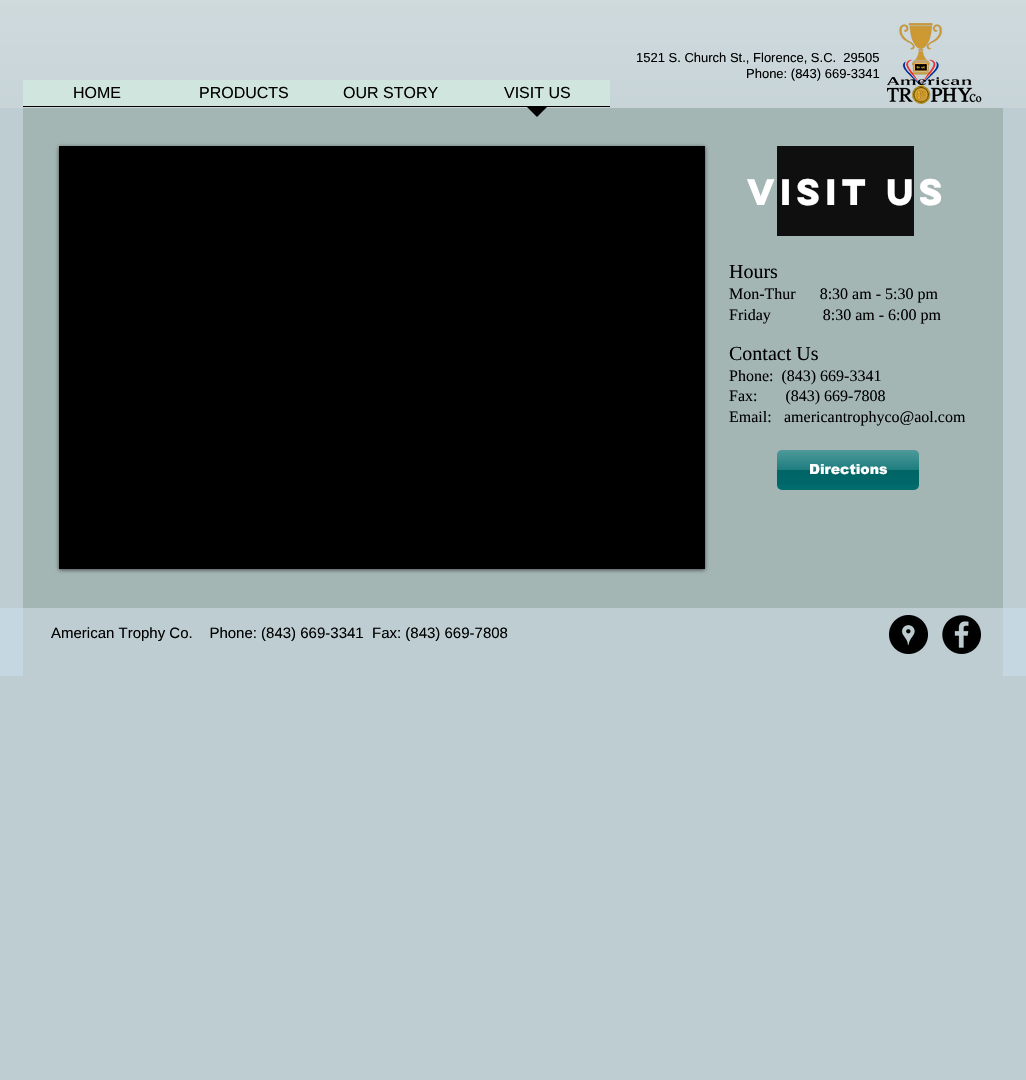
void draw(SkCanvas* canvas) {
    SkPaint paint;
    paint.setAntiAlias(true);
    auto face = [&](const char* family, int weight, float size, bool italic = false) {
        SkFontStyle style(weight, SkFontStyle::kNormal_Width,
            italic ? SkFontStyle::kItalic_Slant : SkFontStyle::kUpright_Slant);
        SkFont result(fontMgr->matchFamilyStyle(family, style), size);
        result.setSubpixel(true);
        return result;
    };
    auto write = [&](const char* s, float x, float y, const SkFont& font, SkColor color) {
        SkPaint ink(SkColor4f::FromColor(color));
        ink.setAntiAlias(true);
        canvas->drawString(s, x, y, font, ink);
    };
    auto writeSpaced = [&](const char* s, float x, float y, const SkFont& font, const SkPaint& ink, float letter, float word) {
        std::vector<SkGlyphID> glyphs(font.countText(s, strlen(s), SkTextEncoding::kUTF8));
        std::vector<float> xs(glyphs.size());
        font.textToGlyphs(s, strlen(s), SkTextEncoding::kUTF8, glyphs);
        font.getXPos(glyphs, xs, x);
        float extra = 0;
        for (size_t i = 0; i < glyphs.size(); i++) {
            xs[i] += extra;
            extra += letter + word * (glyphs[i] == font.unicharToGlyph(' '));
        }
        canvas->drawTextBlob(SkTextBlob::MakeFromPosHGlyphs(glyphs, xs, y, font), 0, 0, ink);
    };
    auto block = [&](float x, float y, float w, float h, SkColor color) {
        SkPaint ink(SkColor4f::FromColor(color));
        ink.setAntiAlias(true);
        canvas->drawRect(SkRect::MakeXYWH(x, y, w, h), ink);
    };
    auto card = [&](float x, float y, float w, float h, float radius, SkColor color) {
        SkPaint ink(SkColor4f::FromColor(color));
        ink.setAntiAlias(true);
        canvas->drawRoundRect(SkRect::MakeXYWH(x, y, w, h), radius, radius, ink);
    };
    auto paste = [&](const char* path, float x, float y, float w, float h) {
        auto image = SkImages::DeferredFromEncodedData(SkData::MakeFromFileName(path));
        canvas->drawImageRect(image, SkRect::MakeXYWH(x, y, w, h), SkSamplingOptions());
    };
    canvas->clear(SkColorSetRGB(190, 205, 209));
    paste("pic1.png", 0, 0, 1026, 108);
    auto kFont1 = face("Liberation Sans", 400, 13);
    write("1521 S. Church St., Florence, S.C.  29505", 636, 62, kFont1, SK_ColorBLACK);
    write("Phone: (843) 669-3341", 746, 78, kFont1, SK_ColorBLACK);
    paste("pic2.png", 887, 23, 95, 81);
    block(23, 80, 587, 26, SkColorSetRGB(208, 229, 222));
    block(23, 106, 587, 1, SK_ColorBLACK);
    auto kFont2 = face("Liberation Sans", 400, 16);
    write("HOME", 73, 98, kFont2, SK_ColorBLACK);
    write("PRODUCTS", 199, 98, kFont2, SK_ColorBLACK);
    write("OUR STORY", 343, 98, kFont2, SK_ColorBLACK);
    write("VISIT US", 504, 98, kFont2, SK_ColorBLACK);
    block(23, 108, 980, 500, SkColorSetRGB(164, 182, 180));
    paint.setColor(SK_ColorBLACK);
    canvas->drawPath(SkPathBuilder().moveTo(526, 106).lineTo(548, 106).lineTo(537, 117).close().detach(), paint);
    paint.setColor(SkColorSetARGB(153, 0, 0, 0));
    paint.setMaskFilter(SkMaskFilter::MakeBlur(kNormal_SkBlurStyle, 2));
    canvas->drawRect(SkRect::MakeXYWH(59, 147, 646, 423), paint);
    paint.setMaskFilter(nullptr);
    block(59, 146, 646, 423, SK_ColorBLACK);
    block(777, 146, 137, 90, SkColorSetRGB(15, 15, 15));
    auto kFont3 = face("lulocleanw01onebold", 700, 33);
    paint.setColor(SK_ColorWHITE);
    writeSpaced("Visit us", 747, 205, kFont3, paint, -1.75f, 0);
    auto kFont4 = face("Liberation Serif", 400, 20);
    write("Hours", 729, 278, kFont4, SK_ColorBLACK);
    auto kFont5 = face("Liberation Serif", 400, 16);
    write("Mon-Thur      8:30 am - 5:30 pm", 729, 299, kFont5, SK_ColorBLACK);
    write("Friday             8:30 am - 6:00 pm", 729, 320, kFont5, SK_ColorBLACK);
    write("Contact Us", 729, 360, kFont4, SK_ColorBLACK);
    write("Phone:  (843) 669-3341", 729, 381, kFont5, SK_ColorBLACK);
    write("Fax:       (843) 669-7808", 729, 401, kFont5, SK_ColorBLACK);
    write("Email:", 729, 422, kFont5, SK_ColorBLACK);
    write("americantrophyco@aol.com", 784, 422, kFont5, SK_ColorBLACK);
    card(777, 450, 142, 40, 5, SkColorSetRGB(0, 108, 109));
    paste("pic3.png", 777, 450, 142, 35);
    auto kFont6 = face("arial", 900, 14);
    write("Directions", 809, 474, kFont6, SK_ColorWHITE);
    block(0, 608, 1026, 68, SkColorSetRGB(197, 215, 225));
    block(23, 608, 980, 68, SkColorSetRGB(190, 205, 209));
    auto kFont7 = face("Liberation Sans", 400, 15);
    write("American Trophy Co.    Phone: (843) 669-3341  Fax: (843) 669-7808", 51, 638, kFont7, SK_ColorBLACK);
    paste("pic4.png", 889, 615, 39, 39);
    paste("pic5.png", 942, 615, 39, 39);
}
